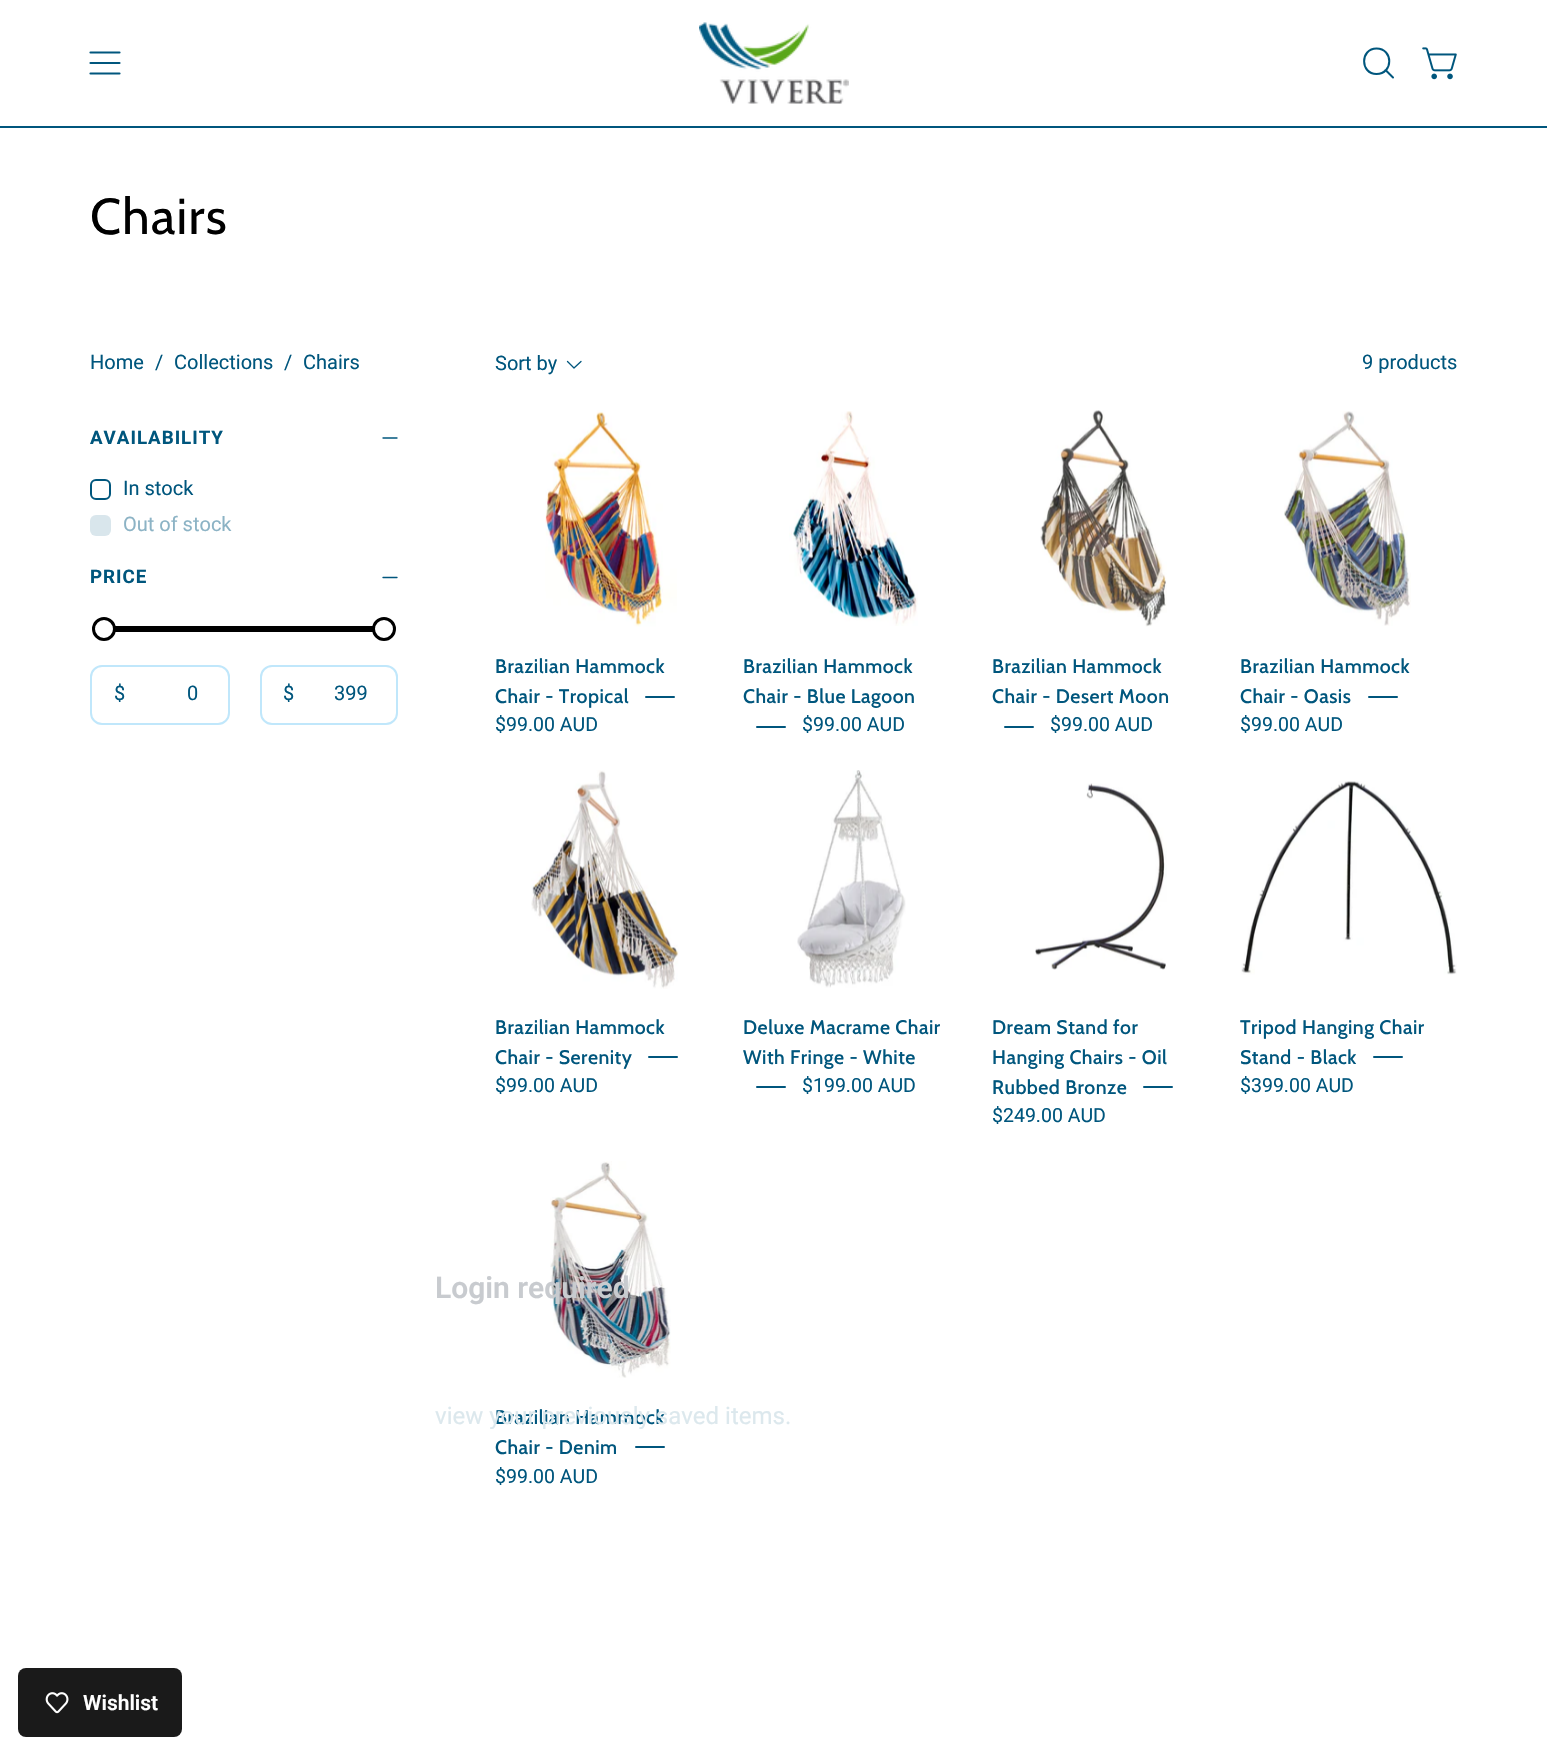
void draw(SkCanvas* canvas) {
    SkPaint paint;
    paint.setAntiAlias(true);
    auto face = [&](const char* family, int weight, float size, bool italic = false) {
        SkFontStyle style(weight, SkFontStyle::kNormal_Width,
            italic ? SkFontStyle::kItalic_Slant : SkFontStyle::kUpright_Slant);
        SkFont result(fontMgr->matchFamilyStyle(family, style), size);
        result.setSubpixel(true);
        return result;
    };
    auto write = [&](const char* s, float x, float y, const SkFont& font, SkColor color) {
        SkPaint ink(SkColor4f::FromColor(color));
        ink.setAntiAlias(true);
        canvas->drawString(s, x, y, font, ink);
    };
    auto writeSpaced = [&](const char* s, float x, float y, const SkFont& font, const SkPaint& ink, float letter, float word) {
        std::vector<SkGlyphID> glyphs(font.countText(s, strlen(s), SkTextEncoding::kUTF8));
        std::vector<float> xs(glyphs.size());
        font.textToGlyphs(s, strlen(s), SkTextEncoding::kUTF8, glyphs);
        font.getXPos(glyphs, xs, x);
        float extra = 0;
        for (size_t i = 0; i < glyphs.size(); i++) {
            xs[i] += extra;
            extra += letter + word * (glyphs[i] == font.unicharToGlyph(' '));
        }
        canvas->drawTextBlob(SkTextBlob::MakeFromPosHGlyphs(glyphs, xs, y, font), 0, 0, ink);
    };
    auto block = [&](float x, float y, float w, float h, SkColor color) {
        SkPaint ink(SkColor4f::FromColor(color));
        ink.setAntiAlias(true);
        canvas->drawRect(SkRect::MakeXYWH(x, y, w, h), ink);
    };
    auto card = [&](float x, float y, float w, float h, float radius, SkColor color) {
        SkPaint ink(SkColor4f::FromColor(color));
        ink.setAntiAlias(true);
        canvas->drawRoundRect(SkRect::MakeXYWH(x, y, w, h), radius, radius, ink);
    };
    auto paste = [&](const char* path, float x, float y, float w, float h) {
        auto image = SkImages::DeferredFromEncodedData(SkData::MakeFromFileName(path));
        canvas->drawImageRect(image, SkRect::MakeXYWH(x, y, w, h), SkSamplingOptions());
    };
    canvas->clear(SK_ColorWHITE);
    paint.setStyle(SkPaint::kStroke_Style);
    paint.setStrokeWidth(2.2f);
    paint.setStrokeCap(SkPaint::kRound_Cap);
    paint.setStrokeJoin(SkPaint::kRound_Join);
    paint.setColor(SkColorSetRGB(0, 86, 125));
    canvas->drawPath(SkPathBuilder().moveTo(90.5f, 63).lineTo(119.5f, 63).moveTo(90.5f, 52.5f).lineTo(119.5f, 52.5f).moveTo(90.5f, 73.5f).lineTo(119.5f, 73.5f).detach(), paint);
    paste("pic1.png", 699, 22, 150, 82);
    paint.setStrokeWidth(2);
    canvas->drawPath(SkPathBuilder().moveTo(1376.5f, 74).cubicTo(1393.5f, 74, 1393.5f, 48.5f, 1376.5f, 48.5f).cubicTo(1360, 48.5f, 1360, 74, 1376.5f, 74).close().moveTo(1385.5f, 70).lineTo(1393, 77.5f).detach(), paint);
    paste("pic2.png", 1422, 47, 35, 33);
    block(0, 126, 1547, 2, SkColorSetRGB(0, 86, 125));
    auto kFont1 = face("Cabin", 400, 50.5f);
    paint.setStyle(SkPaint::kFill_Style);
    paint.setColor(SK_ColorBLACK);
    writeSpaced("Chairs", 90, 234, kFont1, paint, 1.25f, 0);
    auto kFont2 = face("Roboto", 400, 20);
    write("Home", 90, 369, kFont2, SkColorSetRGB(0, 86, 125));
    write("/", 155, 369, kFont2, SkColorSetRGB(0, 86, 125));
    write("Collections", 174, 369, kFont2, SkColorSetRGB(0, 86, 125));
    write("/", 284, 369, kFont2, SkColorSetRGB(0, 86, 125));
    write("Chairs", 303, 369, kFont2, SkColorSetRGB(0, 86, 125));
    write("Sort by", 495, 370, kFont2, SkColorSetRGB(0, 86, 125));
    paint.setStyle(SkPaint::kStroke_Style);
    paint.setStrokeWidth(1.3f);
    paint.setColor(SkColorSetRGB(0, 86, 125));
    canvas->drawPath(SkPathBuilder().moveTo(581, 361.5f).lineTo(574, 368).lineTo(567.5f, 361.5f).detach(), paint);
    write("9 products", 1362, 369, kFont2, SkColorSetRGB(0, 86, 125));
    auto kFont3 = face("Roboto", 700, 18.75f);
    paint.setStyle(SkPaint::kFill_Style);
    writeSpaced("AVAILABILITY", 90, 444, kFont3, paint, 1, 0);
    paint.setStyle(SkPaint::kStroke_Style);
    canvas->drawPath(SkPathBuilder().moveTo(397, 438).lineTo(383, 438).detach(), paint);
    paint.setStrokeWidth(2);
    paint.setStrokeCap(SkPaint::kButt_Cap);
    paint.setStrokeJoin(SkPaint::kMiter_Join);
    canvas->drawRoundRect(SkRect::MakeXYWH(91, 480, 19, 19), 5, 5, paint);
    write("In stock", 123, 495, kFont2, SkColorSetRGB(0, 86, 125));
    card(90, 515, 21, 21, 6, SkColorSetRGB(217, 230, 236));
    write("Out of stock", 123, 531, kFont2, SkColorSetRGB(140, 179, 197));
    paint.setStyle(SkPaint::kFill_Style);
    writeSpaced("PRICE", 90, 583, kFont3, paint, 1, 0);
    paint.setStyle(SkPaint::kStroke_Style);
    paint.setStrokeWidth(1.3f);
    paint.setStrokeCap(SkPaint::kRound_Cap);
    paint.setStrokeJoin(SkPaint::kRound_Join);
    canvas->drawPath(SkPathBuilder().moveTo(397, 577.5f).lineTo(383, 577.5f).detach(), paint);
    block(115, 626, 259, 6, SK_ColorBLACK);
    paint.setStyle(SkPaint::kFill_Style);
    paint.setColor(SK_ColorWHITE);
    canvas->drawCircle(104, 629, 10.5f, paint);
    paint.setStyle(SkPaint::kStroke_Style);
    paint.setStrokeWidth(3);
    paint.setStrokeCap(SkPaint::kButt_Cap);
    paint.setStrokeJoin(SkPaint::kMiter_Join);
    paint.setColor(SK_ColorBLACK);
    canvas->drawCircle(104, 629, 10.5f, paint);
    paint.setStyle(SkPaint::kFill_Style);
    paint.setColor(SK_ColorWHITE);
    canvas->drawCircle(384, 629, 10.5f, paint);
    paint.setStyle(SkPaint::kStroke_Style);
    paint.setColor(SK_ColorBLACK);
    canvas->drawCircle(384, 629, 10.5f, paint);
    paint.setStrokeWidth(2);
    paint.setColor(SkColorSetRGB(192, 231, 251));
    canvas->drawRoundRect(SkRect::MakeXYWH(91, 666, 138, 58), 11, 11, paint);
    write("$", 114, 700, kFont2, SkColorSetRGB(0, 86, 125));
    write("0", 187, 700, kFont2, SkColorSetRGB(0, 86, 125));
    canvas->drawRoundRect(SkRect::MakeXYWH(261, 666, 136, 58), 11, 11, paint);
    write("$", 283, 700, kFont2, SkColorSetRGB(0, 86, 125));
    write("399", 334, 700, kFont2, SkColorSetRGB(0, 86, 125));
    paste("pic3.png", 545, 410, 132, 217);
    auto kFont4 = face("Cabin", 500, 19.5f);
    paint.setStyle(SkPaint::kFill_Style);
    paint.setColor(SkColorSetRGB(0, 86, 125));
    writeSpaced("Brazilian Hammock", 495, 673, kFont4, paint, 0.5f, 0);
    writeSpaced("Chair - Tropical", 495, 703, kFont4, paint, 0.5f, 0);
    card(645, 696, 30, 2, 1, SkColorSetRGB(0, 86, 125));
    auto kFont5 = face("Roboto", 400, 19.5f);
    write("$99.00 AUD", 495, 731, kFont5, SkColorSetRGB(0, 86, 125));
    paste("pic4.png", 789, 411, 129, 215);
    writeSpaced("Brazilian Hammock", 743, 673, kFont4, paint, 0.5f, 0);
    writeSpaced("Chair - Blue Lagoon", 743, 703, kFont4, paint, 0.5f, 0);
    card(756, 726, 30, 2, 1, SkColorSetRGB(0, 86, 125));
    write("$99.00 AUD", 802, 731, kFont5, SkColorSetRGB(0, 86, 125));
    paste("pic5.png", 1040, 410, 127, 217);
    writeSpaced("Brazilian Hammock", 992, 673, kFont4, paint, 0.5f, 0);
    writeSpaced("Chair - Desert Moon", 992, 703, kFont4, paint, 0.5f, 0);
    card(1004, 726, 30, 2, 1, SkColorSetRGB(0, 86, 125));
    write("$99.00 AUD", 1050, 731, kFont5, SkColorSetRGB(0, 86, 125));
    paste("pic6.png", 1284, 411, 127, 215);
    writeSpaced("Brazilian Hammock", 1240, 673, kFont4, paint, 0.5f, 0);
    writeSpaced("Chair - Oasis", 1240, 703, kFont4, paint, 0.5f, 0);
    card(1368, 696, 30, 2, 1, SkColorSetRGB(0, 86, 125));
    write("$99.00 AUD", 1240, 731, kFont5, SkColorSetRGB(0, 86, 125));
    paste("pic7.png", 531, 770, 148, 219);
    writeSpaced("Brazilian Hammock", 495, 1034, kFont4, paint, 0.5f, 0);
    writeSpaced("Chair - Serenity", 495, 1064, kFont4, paint, 0.5f, 0);
    card(648, 1056, 30, 2, 1, SkColorSetRGB(0, 86, 125));
    write("$99.00 AUD", 495, 1092, kFont5, SkColorSetRGB(0, 86, 125));
    paste("pic8.png", 797, 770, 109, 218);
    writeSpaced("Deluxe Macrame Chair", 743, 1034, kFont4, paint, 0.5f, 0);
    writeSpaced("With Fringe - White", 743, 1064, kFont4, paint, 0.5f, 0);
    card(756, 1086, 30, 2, 1, SkColorSetRGB(0, 86, 125));
    write("$199.00 AUD", 802, 1092, kFont5, SkColorSetRGB(0, 86, 125));
    paste("pic9.png", 1035, 783, 132, 187);
    writeSpaced("Dream Stand for", 992, 1034, kFont4, paint, 0.5f, 0);
    writeSpaced("Hanging Chairs - Oil", 992, 1064, kFont4, paint, 0.5f, 0);
    writeSpaced("Rubbed Bronze", 992, 1094, kFont4, paint, 0.5f, 0);
    card(1143, 1086, 30, 2, 1, SkColorSetRGB(0, 86, 125));
    write("$249.00 AUD", 992, 1122, kFont5, SkColorSetRGB(0, 86, 125));
    paste("pic10.png", 1241, 781, 216, 194);
    writeSpaced("Tripod Hanging Chair", 1240, 1034, kFont4, paint, 0.5f, 0);
    writeSpaced("Stand - Black", 1240, 1064, kFont4, paint, 0.5f, 0);
    card(1373, 1056, 30, 2, 1, SkColorSetRGB(0, 86, 125));
    write("$399.00 AUD", 1240, 1092, kFont5, SkColorSetRGB(0, 86, 125));
    paste("pic11.png", 550, 1161, 121, 217);
    writeSpaced("Brazilian Hammock", 495, 1424, kFont4, paint, 0.5f, 0);
    writeSpaced("Chair - Denim", 495, 1454, kFont4, paint, 0.5f, 0);
    card(635, 1446, 30, 2, 1, SkColorSetRGB(0, 86, 125));
    write("$99.00 AUD", 495, 1483, kFont5, SkColorSetRGB(0, 86, 125));
    auto kFont6 = face("Roboto", 600, 30);
    write("Login required", 435, 1298, kFont6, SkColorSetRGB(200, 203, 207));
    auto kFont7 = face("Roboto", 400, 24);
    write("view your previously saved items.", 435, 1424, kFont7, SkColorSetRGB(220, 232, 237));
    card(18, 1668, 164, 69, 8, SkColorSetRGB(26, 26, 26));
    paste("pic12.png", 45, 1692, 24, 22);
    auto kFont8 = face("Roboto", 600, 21);
    write("Wishlist", 83, 1710, kFont8, SK_ColorWHITE);
}
